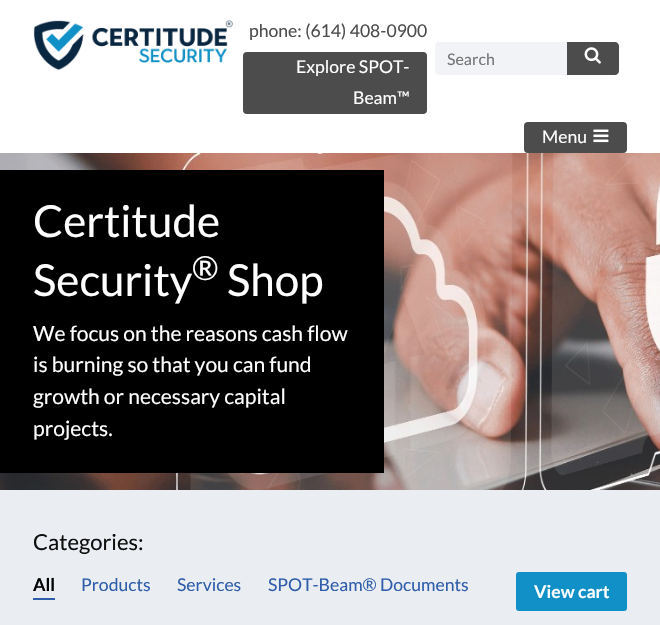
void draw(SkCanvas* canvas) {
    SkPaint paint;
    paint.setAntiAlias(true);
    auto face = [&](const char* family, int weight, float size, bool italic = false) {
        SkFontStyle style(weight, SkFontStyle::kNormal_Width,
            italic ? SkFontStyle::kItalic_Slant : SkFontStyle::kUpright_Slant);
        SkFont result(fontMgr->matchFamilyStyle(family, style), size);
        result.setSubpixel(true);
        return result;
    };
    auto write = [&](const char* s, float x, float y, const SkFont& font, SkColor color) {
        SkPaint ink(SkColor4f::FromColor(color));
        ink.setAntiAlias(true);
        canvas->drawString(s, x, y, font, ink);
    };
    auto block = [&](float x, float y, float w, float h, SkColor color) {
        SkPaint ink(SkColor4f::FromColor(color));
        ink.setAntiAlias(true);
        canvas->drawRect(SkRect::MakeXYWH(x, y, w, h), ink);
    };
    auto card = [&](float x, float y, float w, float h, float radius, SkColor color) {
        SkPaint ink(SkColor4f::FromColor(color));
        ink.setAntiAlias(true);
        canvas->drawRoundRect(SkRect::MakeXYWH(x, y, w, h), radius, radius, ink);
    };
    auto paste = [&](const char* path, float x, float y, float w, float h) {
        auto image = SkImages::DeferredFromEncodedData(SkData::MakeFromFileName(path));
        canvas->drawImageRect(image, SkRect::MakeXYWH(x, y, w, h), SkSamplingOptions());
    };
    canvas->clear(SkColorSetRGB(234, 237, 242));
    block(0, 0, 660, 153, SK_ColorWHITE);
    paste("pic1.png", 33, 20, 200, 50);
    auto kFont1 = face("Lato", 400, 17.6f);
    write("phone: (614) 408-0900", 249, 37, kFont1, SkColorSetRGB(76, 76, 76));
    card(243, 52, 184, 62, 4, SkColorSetRGB(76, 76, 76));
    write("Explore SPOT-", 296, 73, kFont1, SK_ColorWHITE);
    write("Beam™", 353, 104, kFont1, SK_ColorWHITE);
    paint.setColor(SkColorSetRGB(241, 243, 247));
    canvas->drawPath(SkPathBuilder().moveTo(439, 42).lineTo(567, 42).lineTo(567, 75).lineTo(439, 75).cubicTo(437, 75, 435, 73, 435, 71).lineTo(435, 46).cubicTo(435, 44, 437, 42, 439, 42).close().detach(), paint);
    auto kFont2 = face("Lato", 400, 16);
    write("Search", 447, 65, kFont2, SkColorSetRGB(117, 117, 117));
    paint.setColor(SkColorSetRGB(76, 76, 76));
    canvas->drawPath(SkPathBuilder().moveTo(567, 42).lineTo(615, 42).cubicTo(617, 42, 619, 44, 619, 46).lineTo(619, 71).cubicTo(619, 73, 617, 75, 615, 75).lineTo(567, 75).close().detach(), paint);
    paste("pic2.png", 584, 47, 17, 17);
    card(524, 122, 103, 31, 4, SkColorSetRGB(76, 76, 76));
    write("Menu", 542, 143, kFont1, SK_ColorWHITE);
    paste("pic3.png", 593, 129, 16, 14);
    paste("pic4.png", 0, 153, 660, 337);
    block(0, 170, 384, 303, SK_ColorBLACK);
    auto kFont3 = face("Lato", 400, 44);
    write("Certitude", 33, 237, kFont3, SK_ColorWHITE);
    write("Security", 33, 296, kFont3, SK_ColorWHITE);
    auto kFont4 = face("Lato", 400, 33);
    write("®", 192, 280, kFont4, SK_ColorWHITE);
    write("Shop", 227, 296, kFont3, SK_ColorWHITE);
    auto kFont5 = face("Lato", 400, 21.1f);
    write("We focus on the reasons cash flow", 33, 341, kFont5, SK_ColorWHITE);
    write("is burning so that you can fund", 33, 372, kFont5, SK_ColorWHITE);
    write("growth or necessary capital", 33, 404, kFont5, SK_ColorWHITE);
    write("projects.", 33, 436, kFont5, SK_ColorWHITE);
    auto kFont6 = face("Lato", 400, 22);
    write("Categories:", 33, 550, kFont6, SkColorSetRGB(15, 15, 15));
    block(33, 598, 22, 2, SkColorSetRGB(46, 93, 171));
    auto kFont7 = face("Lato", 700, 17.6f);
    write("All", 33, 591, kFont7, SK_ColorBLACK);
    write("Products", 81, 591, kFont1, SkColorSetRGB(46, 93, 171));
    write("Services", 177, 591, kFont1, SkColorSetRGB(46, 93, 171));
    write("SPOT-Beam® Documents", 268, 591, kFont1, SkColorSetRGB(46, 93, 171));
    card(516, 572, 111, 39, 3, SkColorSetRGB(16, 144, 198));
    write("View cart", 534, 598, kFont7, SK_ColorWHITE);
}
